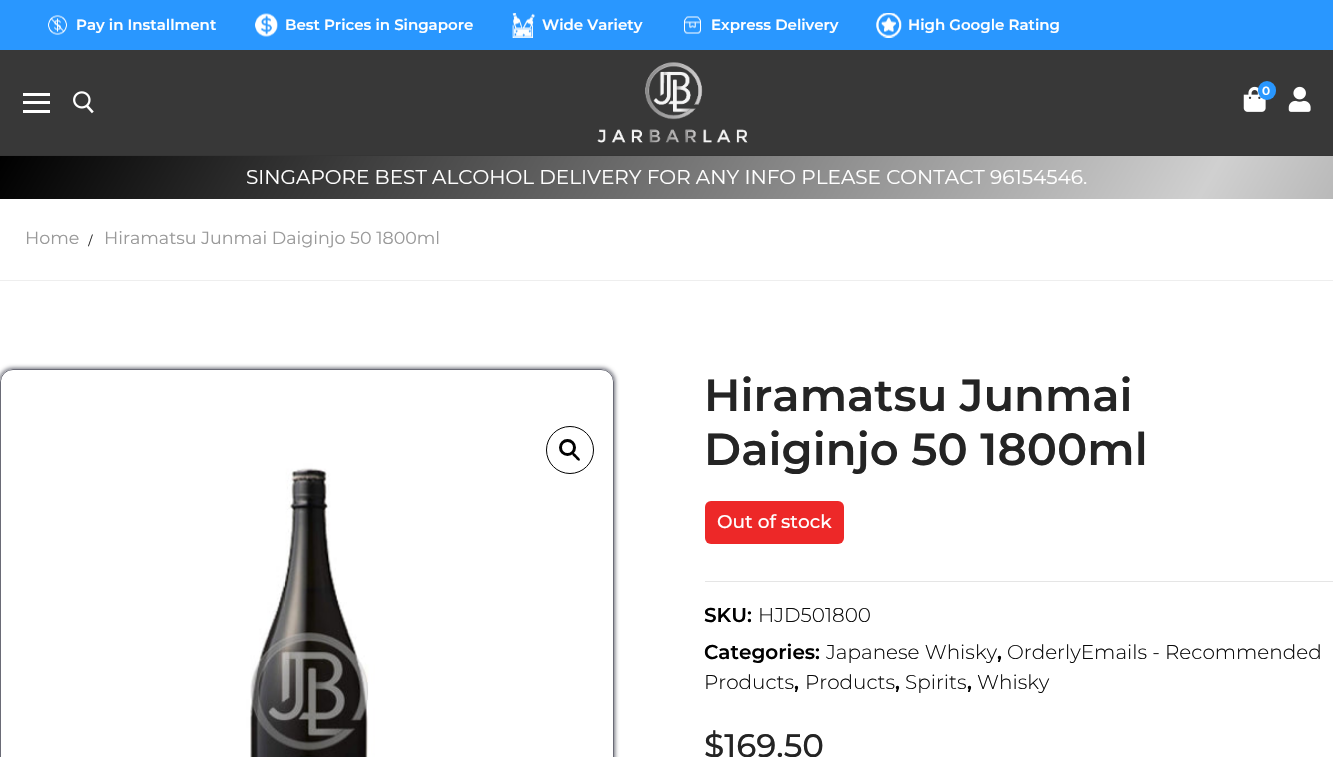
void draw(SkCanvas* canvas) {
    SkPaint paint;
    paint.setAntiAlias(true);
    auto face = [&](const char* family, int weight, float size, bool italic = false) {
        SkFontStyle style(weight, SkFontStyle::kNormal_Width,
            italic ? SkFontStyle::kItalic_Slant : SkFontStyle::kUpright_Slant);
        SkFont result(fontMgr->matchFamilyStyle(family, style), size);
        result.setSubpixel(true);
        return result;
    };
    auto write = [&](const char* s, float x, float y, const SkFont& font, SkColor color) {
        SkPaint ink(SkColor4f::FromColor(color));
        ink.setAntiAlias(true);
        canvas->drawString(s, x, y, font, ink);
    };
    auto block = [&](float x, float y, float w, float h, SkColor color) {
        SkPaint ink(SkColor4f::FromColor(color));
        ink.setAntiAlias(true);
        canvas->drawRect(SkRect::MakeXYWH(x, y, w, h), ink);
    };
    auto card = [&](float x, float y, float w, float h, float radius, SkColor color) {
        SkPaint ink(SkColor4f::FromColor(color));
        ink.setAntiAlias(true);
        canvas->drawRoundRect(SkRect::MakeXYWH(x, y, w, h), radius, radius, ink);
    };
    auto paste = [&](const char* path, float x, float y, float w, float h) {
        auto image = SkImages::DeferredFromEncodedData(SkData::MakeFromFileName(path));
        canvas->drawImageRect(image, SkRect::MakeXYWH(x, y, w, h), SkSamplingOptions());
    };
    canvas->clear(SK_ColorWHITE);
    block(0, 0, 1333, 50, SkColorSetRGB(41, 151, 255));
    paste("pic1.png", 48, 15, 19, 20);
    auto kFont1 = face("Montserrat", 600, 15);
    write("Pay in Installment", 76, 30, kFont1, SK_ColorWHITE);
    paste("pic2.png", 255, 13, 23, 24);
    write("Best Prices in Singapore", 285, 30, kFont1, SK_ColorWHITE);
    paste("pic3.png", 512, 13, 23, 25);
    write("Wide Variety", 542, 30, kFont1, SK_ColorWHITE);
    paste("pic4.png", 684, 16, 17, 18);
    write("Express Delivery", 711, 30, kFont1, SK_ColorWHITE);
    paste("pic5.png", 876, 13, 26, 25);
    write("High Google Rating", 908, 30, kFont1, SK_ColorWHITE);
    block(0, 50, 1333, 105, SkColorSetRGB(56, 56, 56));
    block(0, 155, 1333, 1, SkColorSetRGB(53, 53, 53));
    block(23, 101, 27, 3, SK_ColorWHITE);
    block(23, 93, 27, 3, SK_ColorWHITE);
    block(23, 110, 27, 3, SK_ColorWHITE);
    paste("pic6.png", 73, 91, 21, 23);
    paste("pic7.png", 597, 62, 151, 81);
    paste("pic8.png", 1243, 86, 23, 26);
    card(1258, 81, 18, 19, 9, SkColorSetRGB(41, 151, 255));
    auto kFont2 = face("Montserrat", 600, 12);
    write("0", 1262, 95, kFont2, SK_ColorWHITE);
    paste("pic9.png", 1288, 86, 23, 26);
    {
        const SkColor colors[] = {SK_ColorBLACK, SkColorSetRGB(208, 208, 208), SK_ColorBLACK};
        const float stops[] = {0, 0.5f, 1};
        const SkPoint ends[] = {{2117, 724}, {284, -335}};
        paint.setShader(SkGradientShader::MakeLinear(ends, colors, stops, 3, SkTileMode::kClamp));
        paint.setAlpha(255);
    }
    canvas->drawRect(SkRect::MakeXYWH(0, 156, 1333, 43), paint);
    auto kFont3 = face("Montserrat", 400, 20);
    write("SINGAPORE BEST ALCOHOL DELIVERY FOR ANY INFO PLEASE CONTACT 96154546.", 246, 184, kFont3, SK_ColorWHITE);
    block(0, 280, 1333, 1, SkColorSetRGB(238, 238, 238));
    auto kFont4 = face("Montserrat", 400, 17.5f);
    write("Home", 25, 244, kFont4, SkColorSetRGB(153, 153, 153));
    auto kFont5 = face("Liberation Serif", 400, 17.5f);
    write("/", 88, 246, kFont5, SkColorSetRGB(36, 36, 36));
    write("Hiramatsu Junmai Daiginjo 50 1800ml", 104, 244, kFont4, SkColorSetRGB(153, 153, 153));
    canvas->save();
    canvas->clipPath(SkPathBuilder(SkPathFillType::kEvenOdd).moveTo(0, 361).lineTo(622, 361).lineTo(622, 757).lineTo(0, 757).close().moveTo(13, 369).lineTo(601, 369).cubicTo(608, 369, 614, 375, 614, 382).lineTo(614, 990).cubicTo(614, 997, 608, 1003, 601, 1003).lineTo(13, 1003).cubicTo(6, 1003, 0, 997, 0, 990).lineTo(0, 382).cubicTo(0, 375, 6, 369, 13, 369).close().detach(), true);
    paint.setShader(nullptr);
    paint.setColor(SkColorSetRGB(106, 107, 118));
    paint.setMaskFilter(SkMaskFilter::MakeBlur(kNormal_SkBlurStyle, 2));
    canvas->drawRoundRect(SkRect::MakeXYWH(-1, 368, 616, 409), 14, 14, paint);
    paint.setMaskFilter(nullptr);
    canvas->restore();
    paint.setStyle(SkPaint::kStroke_Style);
    paint.setStrokeWidth(1);
    canvas->drawRoundRect(SkRect::MakeXYWH(0.5f, 369.5f, 613, 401), 12.5f, 12.5f, paint);
    paste("pic10.png", 1, 380, 612, 377);
    paint.setColor(SK_ColorBLACK);
    canvas->drawCircle(570, 450, 23.5f, paint);
    paint.setStrokeWidth(3);
    canvas->drawCircle(567.5f, 447.5f, 7, paint);
    paint.setStyle(SkPaint::kFill_Style);
    canvas->drawPath(SkPathBuilder().moveTo(572.5f, 453).cubicTo(574, 452, 576, 455, 577, 456).cubicTo(577.5f, 456.5f, 581, 459, 579.5f, 460.5f).cubicTo(578, 461.5f, 576, 458.5f, 575, 457.5f).cubicTo(574.5f, 457, 571, 454.5f, 572.5f, 453).close().detach(), paint);
    auto kFont6 = face("Montserrat", 600, 45);
    write("Hiramatsu Junmai", 704, 411, kFont6, SkColorSetRGB(36, 36, 36));
    write("Daiginjo 50 1800ml", 704, 465, kFont6, SkColorSetRGB(36, 36, 36));
    card(705, 501, 139, 43, 6, SkColorSetRGB(237, 40, 40));
    auto kFont7 = face("Montserrat", 500, 18.5f);
    write("Out of stock", 717, 528, kFont7, SK_ColorWHITE);
    block(705, 581, 628, 1, SkColorSetRGB(229, 229, 229));
    auto kFont8 = face("Montserrat", 600, 20);
    write("SKU:", 704, 622, kFont8, SK_ColorBLACK);
    auto kFont9 = face("Montserrat", 300, 20);
    write("HJD501800", 758, 622, kFont9, SkColorSetRGB(10, 10, 10));
    write("Categories:", 704, 659, kFont8, SK_ColorBLACK);
    write("Japanese Whisky", 826, 659, kFont9, SkColorSetRGB(10, 10, 10));
    write(",", 997, 659, kFont8, SK_ColorBLACK);
    write("OrderlyEmails - Recommended", 1007, 659, kFont9, SkColorSetRGB(10, 10, 10));
    write("Products", 704, 689, kFont9, SkColorSetRGB(10, 10, 10));
    write(",", 794, 689, kFont8, SK_ColorBLACK);
    write("Products", 805, 689, kFont9, SkColorSetRGB(10, 10, 10));
    write(",", 895, 689, kFont8, SK_ColorBLACK);
    write("Spirits", 905, 689, kFont9, SkColorSetRGB(10, 10, 10));
    write(",", 967, 689, kFont8, SK_ColorBLACK);
    write("Whisky", 977, 689, kFont9, SkColorSetRGB(10, 10, 10));
    auto kFont10 = face("Montserrat", 500, 32.5f);
    write("$169.50", 704, 757, kFont10, SkColorSetRGB(36, 36, 36));
}
